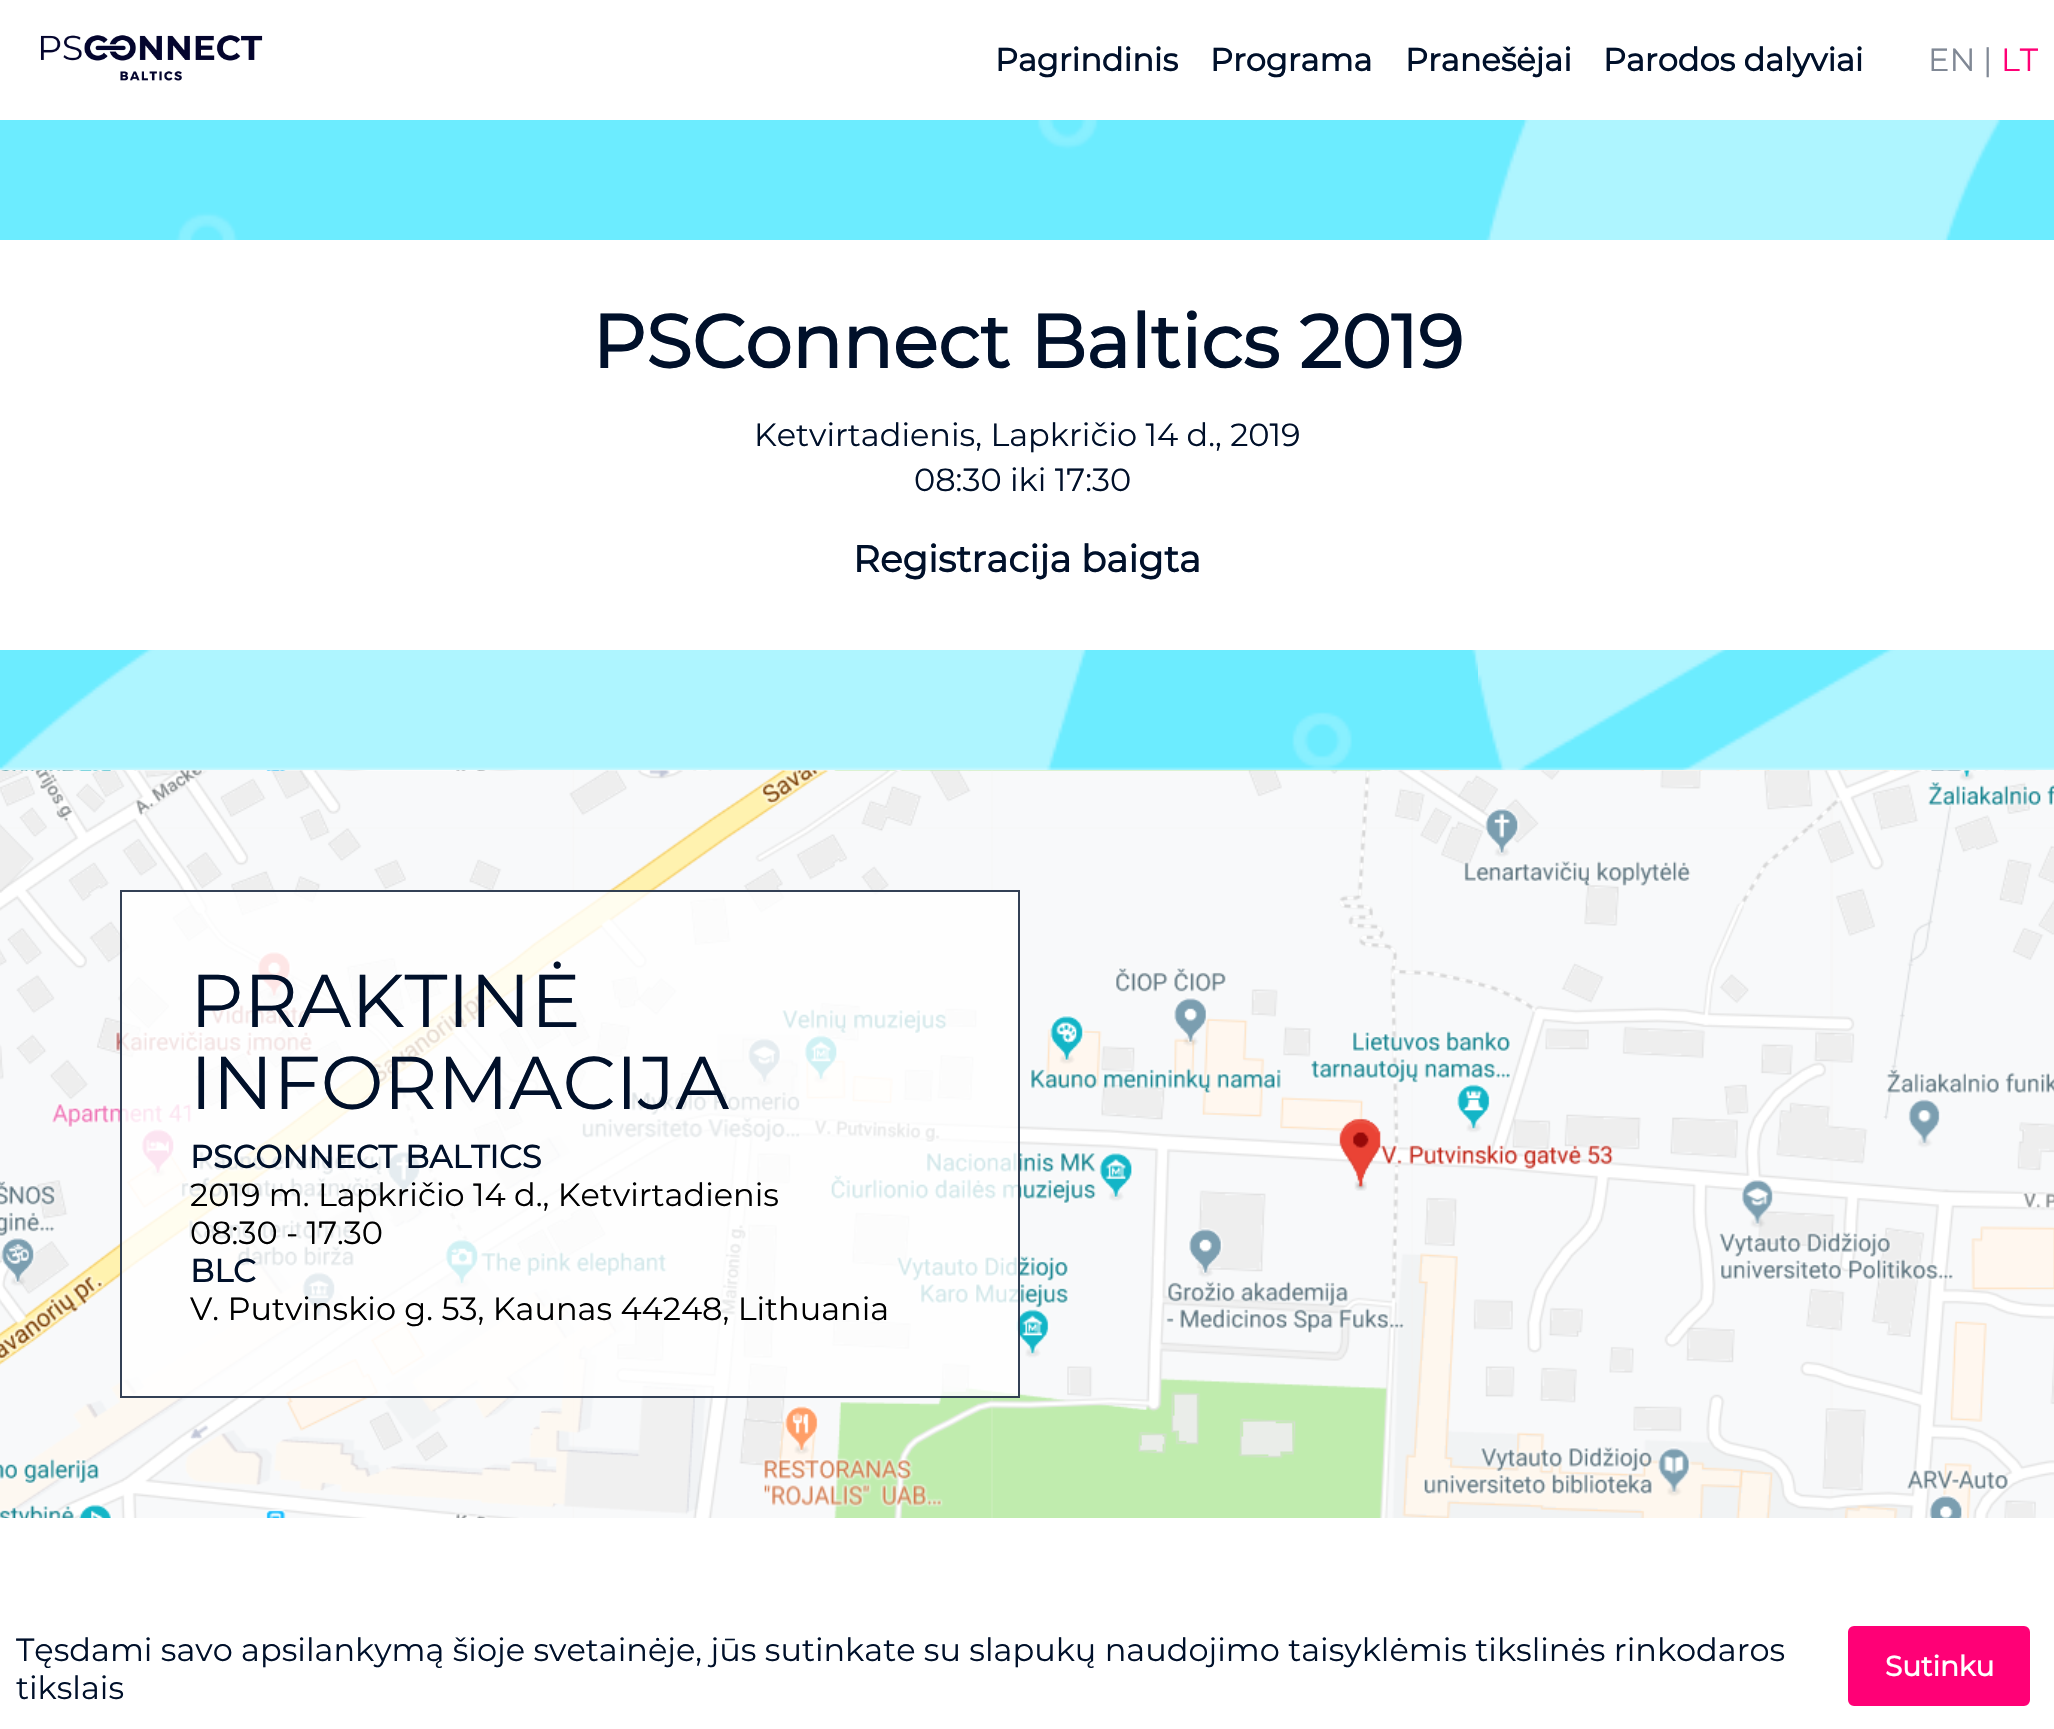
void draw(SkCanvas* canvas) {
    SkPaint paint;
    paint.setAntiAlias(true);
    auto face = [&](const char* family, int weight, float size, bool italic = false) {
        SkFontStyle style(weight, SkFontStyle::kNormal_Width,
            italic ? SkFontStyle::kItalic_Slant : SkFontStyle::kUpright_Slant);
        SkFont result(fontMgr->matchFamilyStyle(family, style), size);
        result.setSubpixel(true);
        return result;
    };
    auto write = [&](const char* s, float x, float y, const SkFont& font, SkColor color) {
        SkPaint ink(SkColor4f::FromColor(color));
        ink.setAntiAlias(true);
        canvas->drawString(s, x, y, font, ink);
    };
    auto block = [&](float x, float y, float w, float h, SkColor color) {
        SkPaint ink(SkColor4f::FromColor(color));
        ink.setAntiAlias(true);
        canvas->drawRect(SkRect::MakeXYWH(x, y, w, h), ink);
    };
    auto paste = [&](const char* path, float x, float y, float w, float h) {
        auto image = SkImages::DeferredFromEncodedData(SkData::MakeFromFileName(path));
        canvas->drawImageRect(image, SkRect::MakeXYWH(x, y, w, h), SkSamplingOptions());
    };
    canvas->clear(SK_ColorWHITE);
    paste("pic1.png", 40, 35, 223, 46);
    auto kFont1 = face("Montserrat", 700, 32);
    write("Pagrindinis", 995, 71, kFont1, SkColorSetRGB(0, 16, 42));
    write("Programa", 1210, 71, kFont1, SkColorSetRGB(0, 16, 42));
    write("Pranešėjai", 1405, 71, kFont1, SkColorSetRGB(0, 16, 42));
    write("Parodos dalyviai", 1603, 71, kFont1, SkColorSetRGB(0, 16, 42));
    auto kFont2 = face("Montserrat", 100, 32);
    write("EN", 1928, 71, kFont2, SkColorSetRGB(128, 136, 149));
    write("|", 1983, 71, kFont2, SkColorSetRGB(128, 136, 149));
    write("LT", 2001, 71, kFont2, SkColorSetRGB(255, 0, 118));
    paste("pic2.png", 0, 120, 2054, 650);
    block(0, 240, 2054, 410, SK_ColorWHITE);
    auto kFont3 = face("Montserrat", 700, 74.75f);
    write("PSConnect Baltics 2019", 592, 368, kFont3, SkColorSetRGB(0, 16, 42));
    write("Ketvirtadienis, Lapkričio 14 d., 2019", 754, 446, kFont2, SkColorSetRGB(0, 16, 42));
    write("08:30 iki 17:30", 914, 491, kFont2, SkColorSetRGB(0, 16, 42));
    auto kFont4 = face("Montserrat", 700, 37.25f);
    write("Registracija baigta", 853, 572, kFont4, SkColorSetRGB(0, 16, 42));
    paste("pic3.png", 0, 770, 2054, 748);
    block(120, 890, 900, 508, SkColorSetARGB(204, 255, 255, 255));
    paint.setStyle(SkPaint::kStroke_Style);
    paint.setStrokeWidth(2);
    paint.setColor(SkColorSetARGB(204, 0, 16, 42));
    canvas->drawRect(SkRect::MakeXYWH(121, 891, 898, 506), paint);
    auto kFont5 = face("Montserrat", 100, 74.75f);
    write("PRAKTINĖ", 190, 1027, kFont5, SkColorSetRGB(0, 16, 42));
    write("INFORMACIJA", 190, 1109, kFont5, SkColorSetRGB(0, 16, 42));
    write("PSCONNECT BALTICS", 190, 1168, kFont1, SkColorSetRGB(0, 16, 42));
    write("2019 m. Lapkričio 14 d., Ketvirtadienis", 190, 1206, kFont2, SK_ColorBLACK);
    write("08:30 - 17.30", 190, 1244, kFont2, SK_ColorBLACK);
    write("BLC", 190, 1282, kFont1, SkColorSetRGB(0, 16, 42));
    write("V. Putvinskio g. 53, Kaunas 44248, Lithuania", 190, 1320, kFont2, SK_ColorBLACK);
    write("Tęsdami savo apsilankymą šioje svetainėje, jūs sutinkate su slapukų naudojimo taisyklėmis tikslinės rinkodaros", 16, 1661, kFont2, SkColorSetRGB(0, 16, 42));
    write("tikslais", 16, 1699, kFont2, SkColorSetRGB(0, 16, 42));
    paint.setStyle(SkPaint::kFill_Style);
    paint.setColor(SkColorSetRGB(255, 0, 118));
    canvas->drawRoundRect(SkRect::MakeXYWH(1852, 1630, 174, 72), 2, 2, paint);
    paint.setStyle(SkPaint::kStroke_Style);
    paint.setStrokeWidth(8);
    canvas->drawRoundRect(SkRect::MakeXYWH(1852, 1630, 174, 72), 2, 2, paint);
    auto kFont6 = face("Montserrat", 700, 28);
    write("Sutinku", 1885, 1676, kFont6, SK_ColorWHITE);
}
